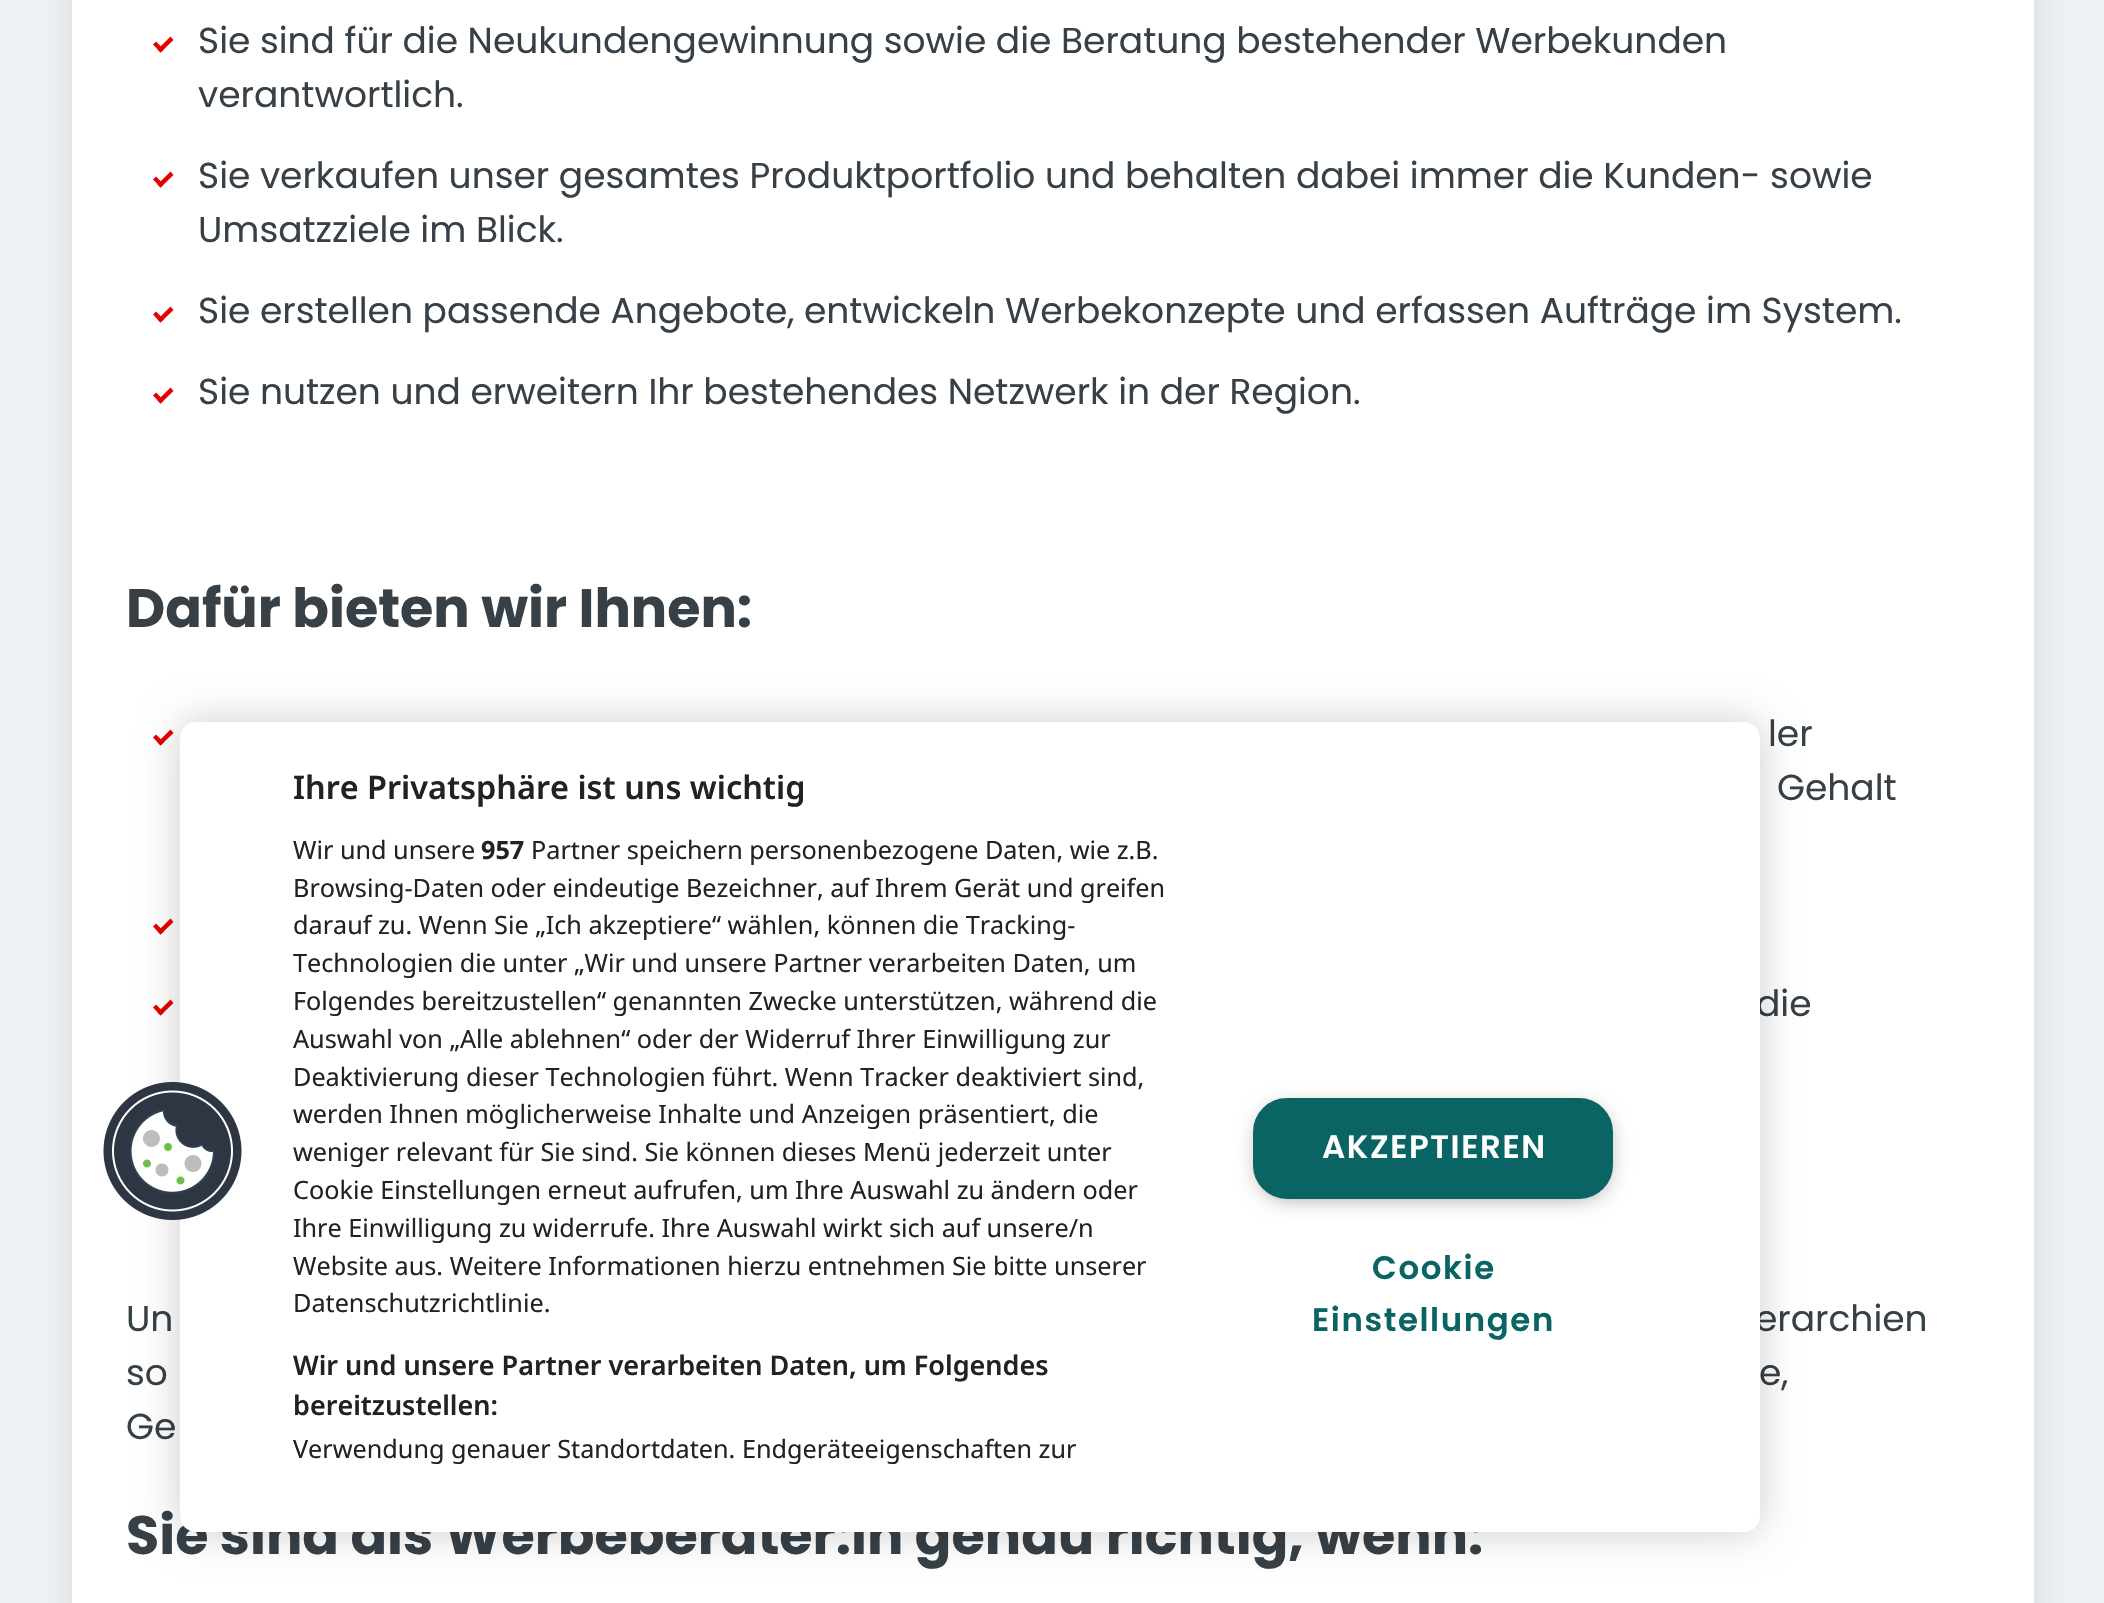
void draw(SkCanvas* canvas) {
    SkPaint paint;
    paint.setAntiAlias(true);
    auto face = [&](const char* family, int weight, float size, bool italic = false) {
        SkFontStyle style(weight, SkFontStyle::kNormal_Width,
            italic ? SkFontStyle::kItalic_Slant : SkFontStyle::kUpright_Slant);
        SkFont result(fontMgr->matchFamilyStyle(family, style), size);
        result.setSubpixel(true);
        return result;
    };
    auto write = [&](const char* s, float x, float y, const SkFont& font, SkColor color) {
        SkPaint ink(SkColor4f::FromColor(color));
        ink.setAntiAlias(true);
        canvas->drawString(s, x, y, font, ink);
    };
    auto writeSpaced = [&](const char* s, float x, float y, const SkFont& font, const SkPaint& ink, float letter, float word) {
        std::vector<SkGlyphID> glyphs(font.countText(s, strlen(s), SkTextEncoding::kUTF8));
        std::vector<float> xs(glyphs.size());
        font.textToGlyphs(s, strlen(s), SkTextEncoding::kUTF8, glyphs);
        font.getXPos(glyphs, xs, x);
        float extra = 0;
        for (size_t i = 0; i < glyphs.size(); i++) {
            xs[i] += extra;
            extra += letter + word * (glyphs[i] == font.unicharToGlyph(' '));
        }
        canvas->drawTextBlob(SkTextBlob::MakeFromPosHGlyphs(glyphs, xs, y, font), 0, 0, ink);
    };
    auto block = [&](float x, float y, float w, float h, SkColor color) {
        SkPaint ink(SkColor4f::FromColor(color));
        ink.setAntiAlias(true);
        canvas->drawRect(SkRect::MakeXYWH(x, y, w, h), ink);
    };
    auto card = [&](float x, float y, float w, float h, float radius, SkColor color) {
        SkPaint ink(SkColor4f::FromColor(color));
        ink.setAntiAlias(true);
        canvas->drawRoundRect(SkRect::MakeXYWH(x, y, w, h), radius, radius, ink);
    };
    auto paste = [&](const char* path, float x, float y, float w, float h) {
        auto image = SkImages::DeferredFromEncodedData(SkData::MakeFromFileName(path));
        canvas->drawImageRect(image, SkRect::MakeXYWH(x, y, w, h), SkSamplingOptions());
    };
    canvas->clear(SkColorSetRGB(239, 242, 244));
    paint.setColor(SkColorSetARGB(26, 0, 0, 0));
    paint.setMaskFilter(SkMaskFilter::MakeBlur(kNormal_SkBlurStyle, 17));
    canvas->drawRoundRect(SkRect::MakeXYWH(72, -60, 1962, 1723), 9, 9, paint);
    paint.setMaskFilter(nullptr);
    block(72, 0, 1962, 1603, SK_ColorWHITE);
    paint.setColor(SkColorSetRGB(230, 0, 0));
    canvas->drawPath(SkPathBuilder().moveTo(170.5f, 36.5f).lineTo(173.5f, 40).lineTo(160.5f, 52.5f).lineTo(157.5f, 49.5f).close().detach(), paint);
    canvas->drawPath(SkPathBuilder().moveTo(156, 41.5f).lineTo(164, 49.5f).lineTo(160.5f, 52.5f).lineTo(153, 44.5f).close().detach(), paint);
    auto kFont1 = face("Poppins", 400, 36);
    write("Sie sind für die Neukundengewinnung sowie die Beratung bestehender Werbekunden", 198, 53, kFont1, SkColorSetRGB(55, 64, 71));
    write("verantwortlich.", 198, 107, kFont1, SkColorSetRGB(55, 64, 71));
    canvas->drawPath(SkPathBuilder().moveTo(170.5f, 171.5f).lineTo(173.5f, 175).lineTo(160.5f, 187.5f).lineTo(157.5f, 184.5f).close().detach(), paint);
    canvas->drawPath(SkPathBuilder().moveTo(156, 176.5f).lineTo(164, 184.5f).lineTo(160.5f, 187.5f).lineTo(153, 179.5f).close().detach(), paint);
    write("Sie verkaufen unser gesamtes Produktportfolio und behalten dabei immer die Kunden- sowie", 198, 188, kFont1, SkColorSetRGB(55, 64, 71));
    write("Umsatzziele im Blick.", 198, 242, kFont1, SkColorSetRGB(55, 64, 71));
    canvas->drawPath(SkPathBuilder().moveTo(170.5f, 306.5f).lineTo(173.5f, 310).lineTo(160.5f, 322.5f).lineTo(157.5f, 319.5f).close().detach(), paint);
    canvas->drawPath(SkPathBuilder().moveTo(156, 311.5f).lineTo(164, 319.5f).lineTo(160.5f, 322.5f).lineTo(153, 314.5f).close().detach(), paint);
    write("Sie erstellen passende Angebote, entwickeln Werbekonzepte und erfassen Aufträge im System.", 198, 323, kFont1, SkColorSetRGB(55, 64, 71));
    canvas->drawPath(SkPathBuilder().moveTo(170.5f, 387.5f).lineTo(173.5f, 391).lineTo(160.5f, 403.5f).lineTo(157.5f, 400.5f).close().detach(), paint);
    canvas->drawPath(SkPathBuilder().moveTo(156, 392.5f).lineTo(164, 400.5f).lineTo(160.5f, 403.5f).lineTo(153, 395.5f).close().detach(), paint);
    write("Sie nutzen und erweitern Ihr bestehendes Netzwerk in der Region.", 198, 404, kFont1, SkColorSetRGB(55, 64, 71));
    auto kFont2 = face("Poppins", 700, 54);
    write("Dafür bieten wir Ihnen:", 126, 627, kFont2, SkColorSetRGB(55, 64, 71));
    canvas->drawPath(SkPathBuilder().moveTo(170.5f, 729.5f).lineTo(173.5f, 733).lineTo(160.5f, 745.5f).lineTo(157.5f, 742.5f).close().detach(), paint);
    canvas->drawPath(SkPathBuilder().moveTo(156, 734.5f).lineTo(164, 742.5f).lineTo(160.5f, 745.5f).lineTo(153, 737.5f).close().detach(), paint);
    write("ler", 1768, 746, kFont1, SkColorSetRGB(55, 64, 71));
    write("Gehalt", 1777, 800, kFont1, SkColorSetRGB(55, 64, 71));
    canvas->drawPath(SkPathBuilder().moveTo(170.5f, 918.5f).lineTo(173.5f, 922).lineTo(160.5f, 934.5f).lineTo(157.5f, 931.5f).close().detach(), paint);
    canvas->drawPath(SkPathBuilder().moveTo(156, 923.5f).lineTo(164, 931.5f).lineTo(160.5f, 934.5f).lineTo(153, 926.5f).close().detach(), paint);
    canvas->drawPath(SkPathBuilder().moveTo(170.5f, 999.5f).lineTo(173.5f, 1003).lineTo(160.5f, 1015.5f).lineTo(157.5f, 1012.5f).close().detach(), paint);
    canvas->drawPath(SkPathBuilder().moveTo(156, 1004.5f).lineTo(164, 1012.5f).lineTo(160.5f, 1015.5f).lineTo(153, 1007.5f).close().detach(), paint);
    write("die", 1756, 1016, kFont1, SkColorSetRGB(55, 64, 71));
    write("Un", 126, 1331, kFont1, SkColorSetRGB(55, 64, 71));
    write("erarchien", 1755, 1331, kFont1, SkColorSetRGB(55, 64, 71));
    write("so", 126, 1385, kFont1, SkColorSetRGB(55, 64, 71));
    write("e,", 1759, 1385, kFont1, SkColorSetRGB(55, 64, 71));
    write("Ge", 126, 1439, kFont1, SkColorSetRGB(55, 64, 71));
    write("Sie sind als Werbeberater:in genau richtig, wenn:", 126, 1554, kFont2, SkColorSetRGB(55, 64, 71));
    paint.setColor(SkColorSetARGB(51, 0, 0, 0));
    paint.setMaskFilter(SkMaskFilter::MakeBlur(kNormal_SkBlurStyle, 20));
    canvas->drawRoundRect(SkRect::MakeXYWH(180, 722, 1580, 810), 16, 16, paint);
    paint.setMaskFilter(nullptr);
    card(180, 722, 1580, 810, 16, SK_ColorWHITE);
    paste("pic1.png", 103, 1082, 139, 138);
    auto kFont3 = face("Noto Sans", 600, 32.4f);
    write("Ihre Privatsphäre ist uns wichtig", 293, 799, kFont3, SkColorSetRGB(34, 34, 34));
    auto kFont4 = face("Noto Sans", 400, 25.2f);
    write("Wir und unsere", 293, 859, kFont4, SkColorSetRGB(34, 34, 34));
    auto kFont5 = face("Noto Sans", 700, 25.2f);
    write("957", 481, 859, kFont5, SkColorSetRGB(34, 34, 34));
    write("Partner speichern personenbezogene Daten, wie z.B.", 531, 859, kFont4, SkColorSetRGB(34, 34, 34));
    write("Browsing-Daten oder eindeutige Bezeichner, auf Ihrem Gerät und greifen", 293, 897, kFont4, SkColorSetRGB(34, 34, 34));
    write("darauf zu. Wenn Sie „Ich akzeptiere“ wählen, können die Tracking-", 293, 934, kFont4, SkColorSetRGB(34, 34, 34));
    write("Technologien die unter „Wir und unsere Partner verarbeiten Daten, um", 293, 972, kFont4, SkColorSetRGB(34, 34, 34));
    write("Folgendes bereitzustellen“ genannten Zwecke unterstützen, während die", 293, 1010, kFont4, SkColorSetRGB(34, 34, 34));
    write("Auswahl von „Alle ablehnen“ oder der Widerruf Ihrer Einwilligung zur", 293, 1048, kFont4, SkColorSetRGB(34, 34, 34));
    write("Deaktivierung dieser Technologien führt. Wenn Tracker deaktiviert sind,", 293, 1086, kFont4, SkColorSetRGB(34, 34, 34));
    write("werden Ihnen möglicherweise Inhalte und Anzeigen präsentiert, die", 293, 1123, kFont4, SkColorSetRGB(34, 34, 34));
    write("weniger relevant für Sie sind. Sie können dieses Menü jederzeit unter", 293, 1161, kFont4, SkColorSetRGB(34, 34, 34));
    write("Cookie Einstellungen erneut aufrufen, um Ihre Auswahl zu ändern oder", 293, 1199, kFont4, SkColorSetRGB(34, 34, 34));
    write("Ihre Einwilligung zu widerrufe. Ihre Auswahl wirkt sich auf unsere/n", 293, 1237, kFont4, SkColorSetRGB(34, 34, 34));
    write("Website aus. Weitere Informationen hierzu entnehmen Sie bitte unserer", 293, 1275, kFont4, SkColorSetRGB(34, 34, 34));
    write("Datenschutzrichtlinie.", 293, 1312, kFont4, SkColorSetRGB(34, 34, 34));
    auto kFont6 = face("Noto Sans", 600, 27);
    write("Wir und unsere Partner verarbeiten Daten, um Folgendes", 293, 1375, kFont6, SkColorSetRGB(34, 34, 34));
    write("bereitzustellen:", 293, 1415, kFont6, SkColorSetRGB(34, 34, 34));
    write("Verwendung genauer Standortdaten. Endgeräteeigenschaften zur", 293, 1458, kFont4, SkColorSetRGB(34, 34, 34));
    paint.setColor(SkColorSetRGB(153, 153, 153));
    paint.setMaskFilter(SkMaskFilter::MakeBlur(kNormal_SkBlurStyle, 11));
    canvas->drawRoundRect(SkRect::MakeXYWH(1260, 1109, 347, 88), 27, 27, paint);
    paint.setMaskFilter(nullptr);
    paint.setColor(SkColorSetRGB(10, 100, 100));
    canvas->drawRoundRect(SkRect::MakeXYWH(1254, 1099, 358, 99), 33, 33, paint);
    paint.setStyle(SkPaint::kStroke_Style);
    paint.setStrokeWidth(2);
    canvas->drawRoundRect(SkRect::MakeXYWH(1254, 1099, 358, 99), 33, 33, paint);
    auto kFont7 = face("Poppins", 600, 32.4f);
    paint.setStyle(SkPaint::kFill_Style);
    paint.setColor(SK_ColorWHITE);
    writeSpaced("AKZEPTIEREN", 1322, 1158, kFont7, paint, 1.6f, 0);
    paint.setColor(SkColorSetRGB(10, 100, 100));
    writeSpaced("Cookie", 1372, 1279, kFont7, paint, 1.6f, 0);
    writeSpaced("Einstellungen", 1312, 1331, kFont7, paint, 1.6f, 0);
}
